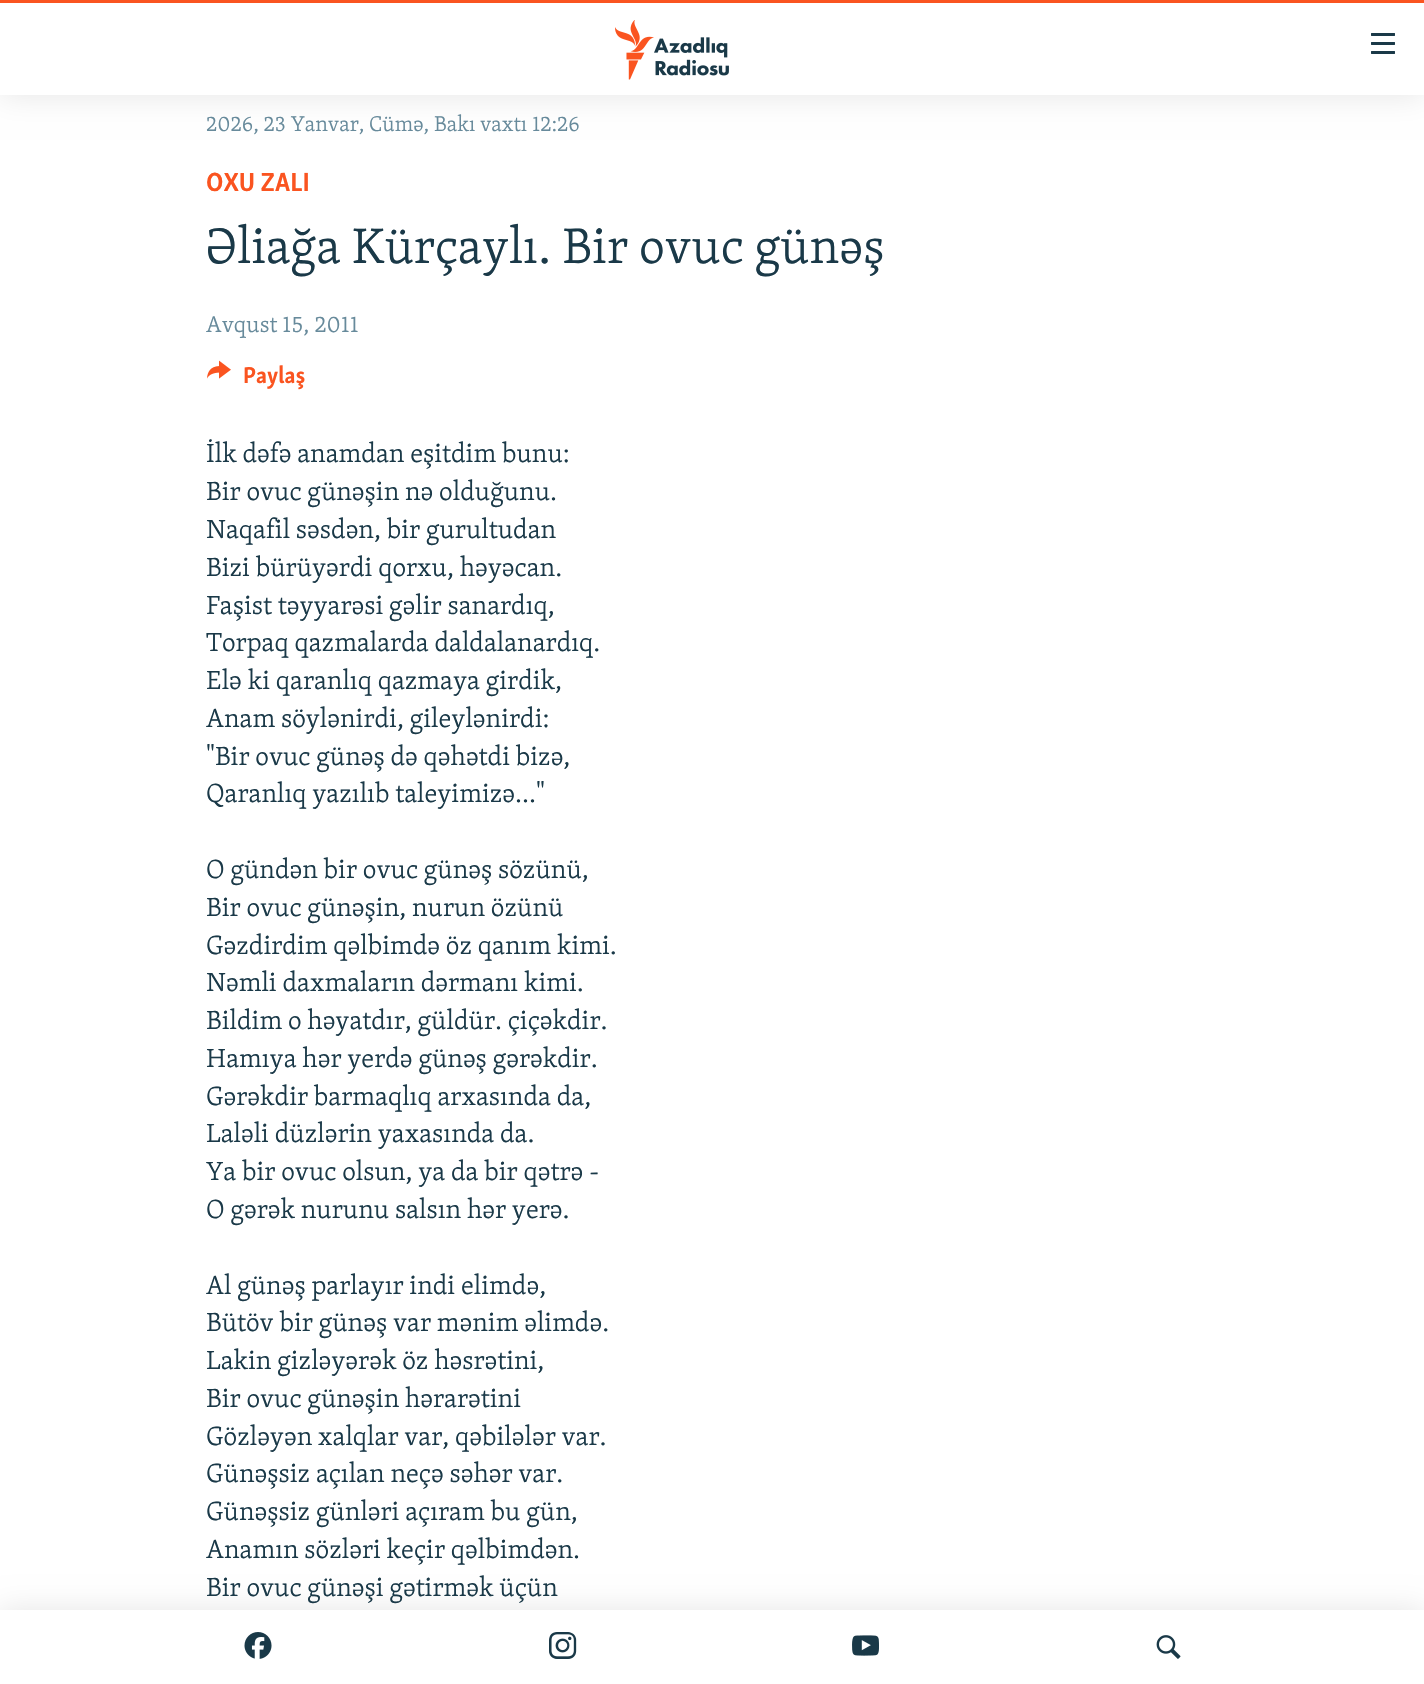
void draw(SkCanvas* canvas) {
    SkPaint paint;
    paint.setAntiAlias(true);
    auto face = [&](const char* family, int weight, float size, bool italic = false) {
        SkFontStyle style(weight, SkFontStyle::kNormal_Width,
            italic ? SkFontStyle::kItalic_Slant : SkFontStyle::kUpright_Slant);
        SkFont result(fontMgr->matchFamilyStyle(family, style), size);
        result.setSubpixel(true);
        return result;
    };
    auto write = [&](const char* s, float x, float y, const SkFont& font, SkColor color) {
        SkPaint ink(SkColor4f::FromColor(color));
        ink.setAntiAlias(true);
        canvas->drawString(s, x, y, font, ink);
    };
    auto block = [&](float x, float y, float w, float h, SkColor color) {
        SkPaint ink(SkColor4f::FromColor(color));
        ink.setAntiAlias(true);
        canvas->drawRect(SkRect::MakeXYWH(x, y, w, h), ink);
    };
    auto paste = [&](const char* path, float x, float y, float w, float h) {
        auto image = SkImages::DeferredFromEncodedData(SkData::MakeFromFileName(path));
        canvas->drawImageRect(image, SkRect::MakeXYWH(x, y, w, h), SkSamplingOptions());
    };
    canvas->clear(SK_ColorWHITE);
    paint.setColor(SkColorSetARGB(26, 0, 0, 0));
    paint.setMaskFilter(SkMaskFilter::MakeBlur(kNormal_SkBlurStyle, 15));
    canvas->drawRect(SkRect::MakeXYWH(0, 0, 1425, 95), paint);
    paint.setMaskFilter(nullptr);
    block(0, 3, 1424, 92, SK_ColorWHITE);
    block(0, 0, 1424, 3, SkColorSetRGB(250, 84, 32));
    paste("pic1.png", 615, 20, 114, 60);
    paste("pic2.png", 1371, 33, 24, 21);
    paint.setMaskFilter(SkMaskFilter::MakeBlur(kNormal_SkBlurStyle, 15));
    canvas->drawRect(SkRect::MakeXYWH(0, 1610, 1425, 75), paint);
    paint.setMaskFilter(nullptr);
    block(0, 1610, 1424, 74, SK_ColorWHITE);
    paste("pic3.png", 244, 1632, 28, 27);
    paste("pic4.png", 549, 1632, 28, 27);
    paste("pic5.png", 852, 1635, 27, 21);
    paste("pic6.png", 1156, 1635, 25, 24);
    auto kFont1 = face("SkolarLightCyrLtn", 300, 21.9f);
    write("2026, 23 Yanvar, Cümə, Bakı vaxtı 12:26", 206, 131, kFont1, SkColorSetRGB(103, 138, 155));
    auto kFont2 = face("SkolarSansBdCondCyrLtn", 700, 27);
    write("OXU ZALI", 206, 191, kFont2, SkColorSetRGB(250, 84, 32));
    auto kFont3 = face("SkolarLightCyrLtn", 300, 51.25f);
    write("Əliağa Kürçaylı. Bir ovuc günəş", 206, 263, kFont3, SkColorSetRGB(26, 57, 72));
    auto kFont4 = face("SkolarLightCyrLtn", 300, 23.5f);
    write("Avqust 15, 2011", 206, 332, kFont4, SkColorSetRGB(103, 138, 155));
    paste("pic7.png", 207, 360, 24, 19);
    auto kFont5 = face("SkolarSansBdCondCyrLtn", 700, 23.5f);
    write("Paylaş", 243, 383, kFont5, SkColorSetRGB(250, 84, 32));
    auto kFont6 = face("SkolarLightCyrLtn", 300, 27);
    write("İlk dəfə anamdan eşitdim bunu:", 206, 462, kFont6, SkColorSetRGB(26, 57, 72));
    write("Bir ovuc günəşin nə olduğunu.", 206, 500, kFont6, SkColorSetRGB(26, 57, 72));
    write("Naqafil səsdən, bir gurultudan", 206, 538, kFont6, SkColorSetRGB(26, 57, 72));
    write("Bizi bürüyərdi qorxu, həyəcan.", 206, 576, kFont6, SkColorSetRGB(26, 57, 72));
    write("Faşist təyyarəsi gəlir sanardıq,", 206, 614, kFont6, SkColorSetRGB(26, 57, 72));
    write("Torpaq qazmalarda daldalanardıq.", 206, 651, kFont6, SkColorSetRGB(26, 57, 72));
    write("Elə ki qaranlıq qazmaya girdik,", 206, 689, kFont6, SkColorSetRGB(26, 57, 72));
    write("Anam söylənirdi, gileylənirdi:", 206, 727, kFont6, SkColorSetRGB(26, 57, 72));
    write("\"Bir ovuc günəş də qəhətdi bizə,", 206, 765, kFont6, SkColorSetRGB(26, 57, 72));
    write("Qaranlıq yazılıb taleyimizə...\"", 206, 802, kFont6, SkColorSetRGB(26, 57, 72));
    write("O gündən bir ovuc günəş sözünü,", 206, 878, kFont6, SkColorSetRGB(26, 57, 72));
    write("Bir ovuc günəşin, nurun özünü", 206, 916, kFont6, SkColorSetRGB(26, 57, 72));
    write("Gəzdirdim qəlbimdə öz qanım kimi.", 206, 954, kFont6, SkColorSetRGB(26, 57, 72));
    write("Nəmli daxmaların dərmanı kimi.", 206, 991, kFont6, SkColorSetRGB(26, 57, 72));
    write("Bildim o həyatdır, güldür. çiçəkdir.", 206, 1029, kFont6, SkColorSetRGB(26, 57, 72));
    write("Hamıya hər yerdə günəş gərəkdir.", 206, 1067, kFont6, SkColorSetRGB(26, 57, 72));
    write("Gərəkdir barmaqlıq arxasında da,", 206, 1105, kFont6, SkColorSetRGB(26, 57, 72));
    write("Laləli düzlərin yaxasında da.", 206, 1142, kFont6, SkColorSetRGB(26, 57, 72));
    write("Ya bir ovuc olsun, ya da bir qətrə -", 206, 1180, kFont6, SkColorSetRGB(26, 57, 72));
    write("O gərək nurunu salsın hər yerə.", 206, 1218, kFont6, SkColorSetRGB(26, 57, 72));
    write("Al günəş parlayır indi elimdə,", 206, 1294, kFont6, SkColorSetRGB(26, 57, 72));
    write("Bütöv bir günəş var mənim əlimdə.", 206, 1331, kFont6, SkColorSetRGB(26, 57, 72));
    write("Lakin gizləyərək öz həsrətini,", 206, 1369, kFont6, SkColorSetRGB(26, 57, 72));
    write("Bir ovuc günəşin hərarətini", 206, 1407, kFont6, SkColorSetRGB(26, 57, 72));
    write("Gözləyən xalqlar var, qəbilələr var.", 206, 1445, kFont6, SkColorSetRGB(26, 57, 72));
    write("Günəşsiz açılan neçə səhər var.", 206, 1482, kFont6, SkColorSetRGB(26, 57, 72));
    write("Günəşsiz günləri açıram bu gün,", 206, 1520, kFont6, SkColorSetRGB(26, 57, 72));
    write("Anamın sözləri keçir qəlbimdən.", 206, 1558, kFont6, SkColorSetRGB(26, 57, 72));
    write("Bir ovuc günəşi gətirmək üçün", 206, 1596, kFont6, SkColorSetRGB(26, 57, 72));
}
